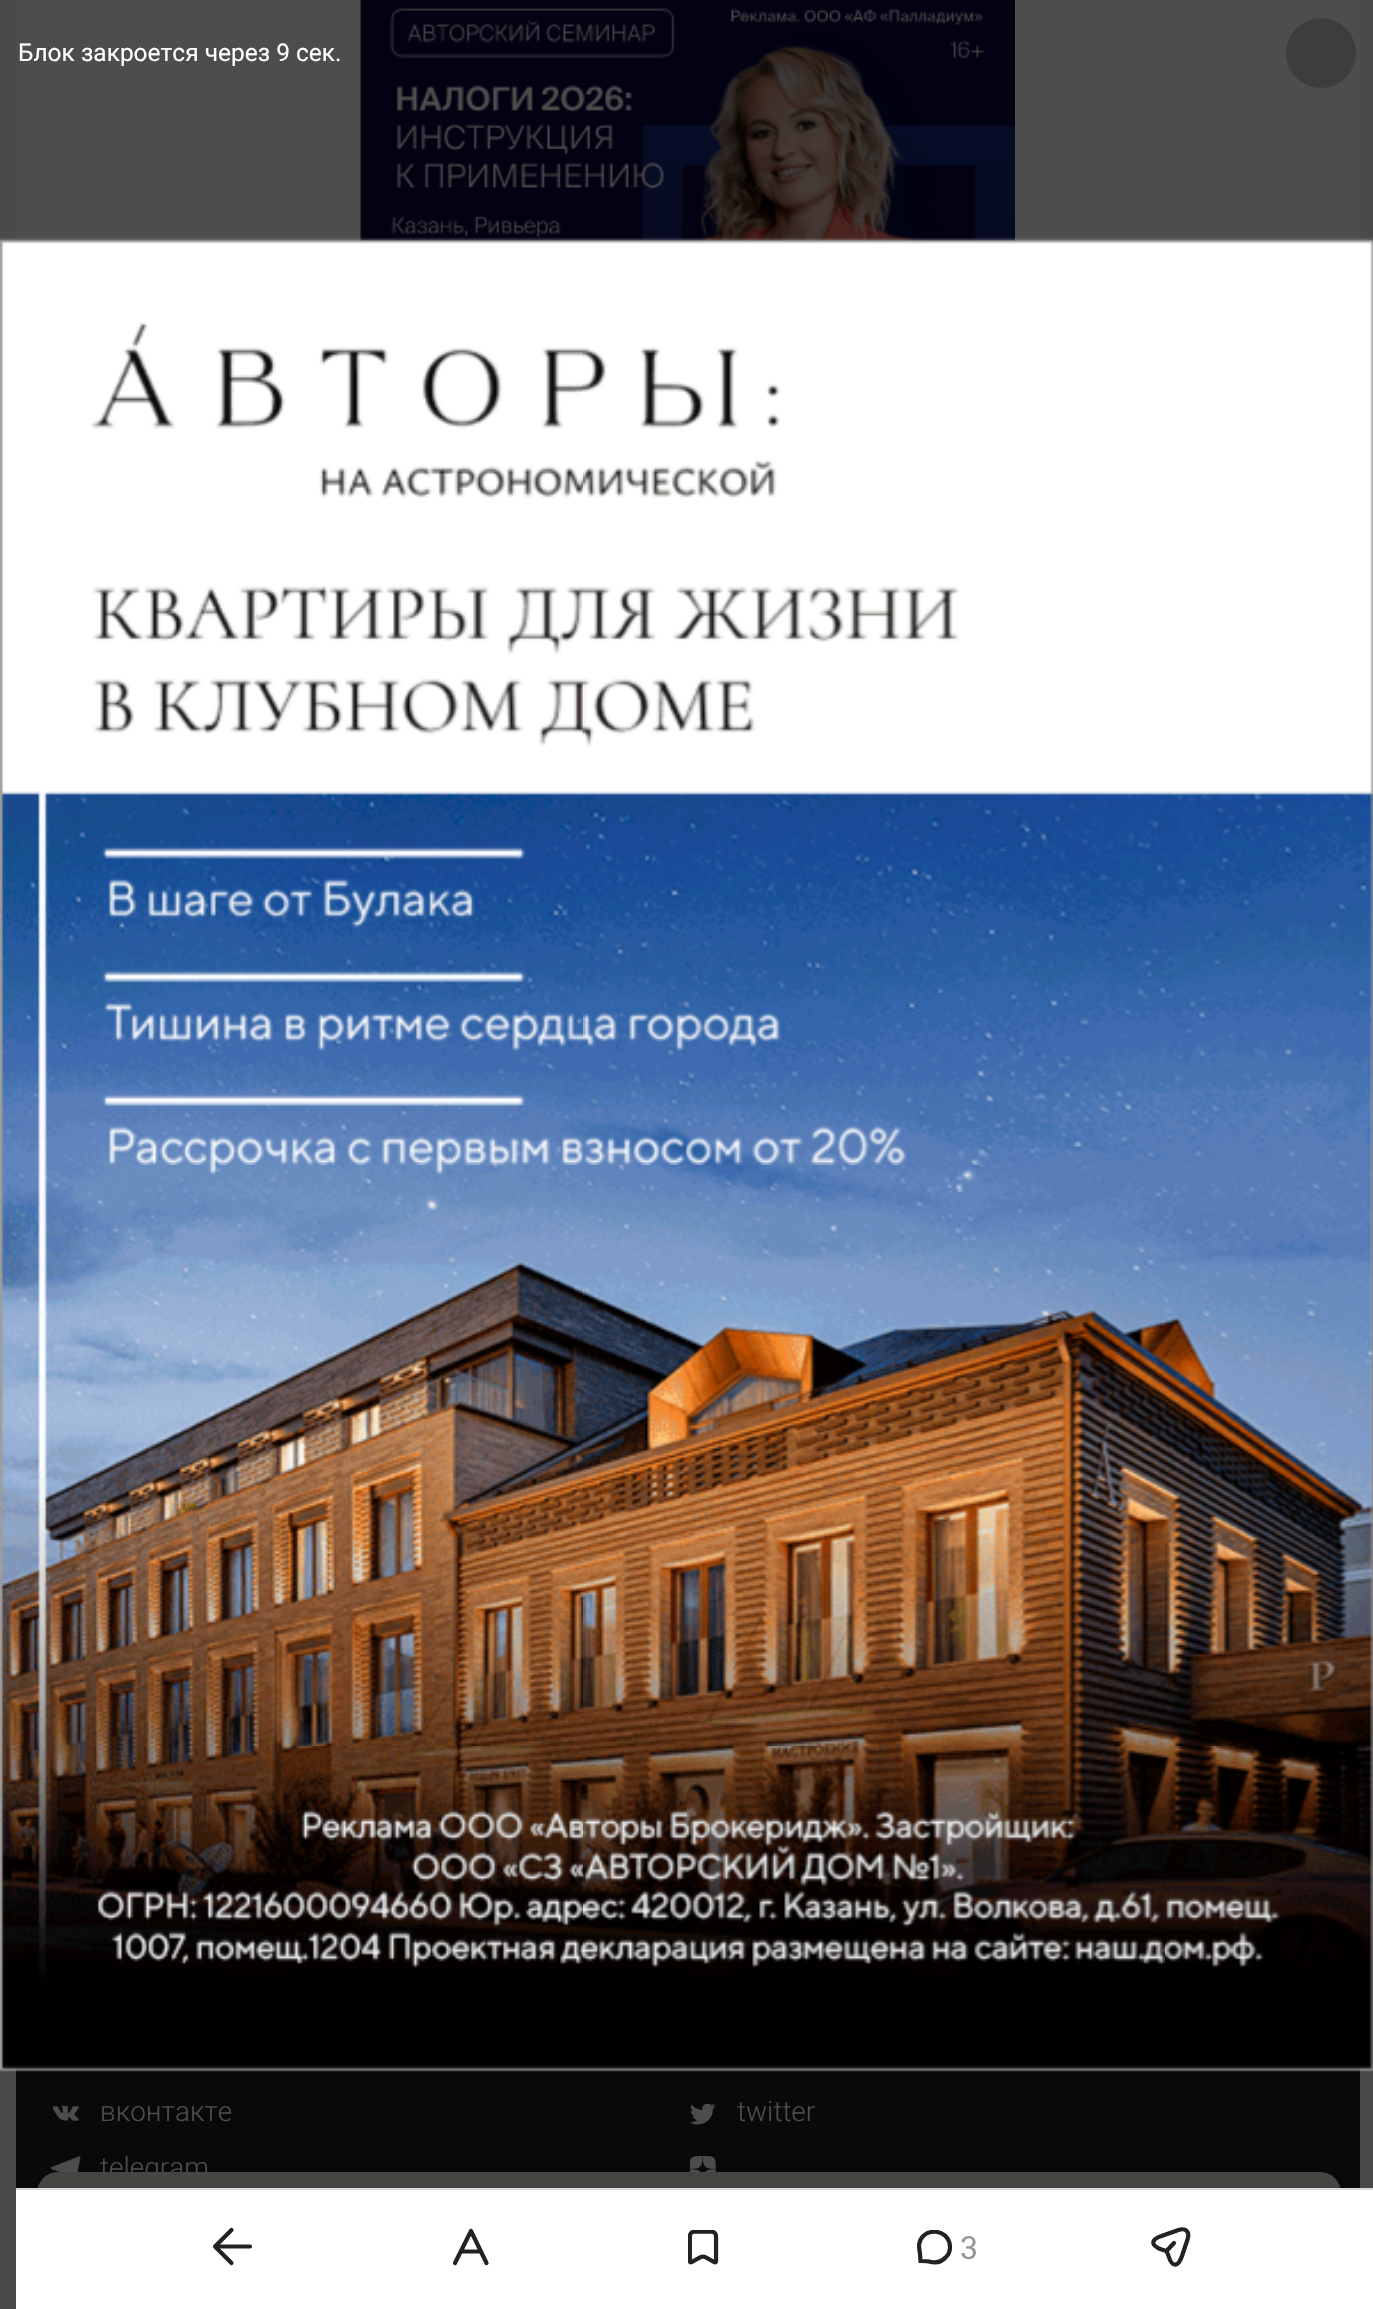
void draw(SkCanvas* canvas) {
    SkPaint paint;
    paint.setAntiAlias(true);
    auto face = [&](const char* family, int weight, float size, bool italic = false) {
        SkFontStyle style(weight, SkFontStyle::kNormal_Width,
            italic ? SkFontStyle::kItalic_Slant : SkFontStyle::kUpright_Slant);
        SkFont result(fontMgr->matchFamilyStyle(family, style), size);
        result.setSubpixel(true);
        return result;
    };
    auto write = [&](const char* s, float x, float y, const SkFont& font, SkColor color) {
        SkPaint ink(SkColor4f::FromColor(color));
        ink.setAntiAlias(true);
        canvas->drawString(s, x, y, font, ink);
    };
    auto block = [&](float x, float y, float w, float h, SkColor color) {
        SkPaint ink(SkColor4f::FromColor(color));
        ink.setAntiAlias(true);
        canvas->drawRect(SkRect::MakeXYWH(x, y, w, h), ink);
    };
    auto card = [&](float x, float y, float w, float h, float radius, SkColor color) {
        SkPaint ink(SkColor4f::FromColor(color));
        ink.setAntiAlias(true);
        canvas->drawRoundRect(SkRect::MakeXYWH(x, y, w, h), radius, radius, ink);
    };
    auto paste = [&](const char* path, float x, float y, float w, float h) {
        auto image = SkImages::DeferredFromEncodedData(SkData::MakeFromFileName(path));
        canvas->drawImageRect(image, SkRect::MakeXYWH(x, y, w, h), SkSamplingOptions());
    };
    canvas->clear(SkColorSetRGB(73, 74, 74));
    block(16, 0, 1344, 241, SkColorSetRGB(77, 77, 77));
    auto kFont1 = face("Roboto", 400, 24.5f);
    write("Блок закроется через 9 сек.", 18, 61, kFont1, SK_ColorWHITE);
    paint.setColor(SkColorSetRGB(61, 61, 61));
    canvas->drawCircle(1321, 53, 35, paint);
    block(16, 2067, 1344, 121, SkColorSetRGB(9, 9, 9));
    paste("pic6.png", 360, 0, 655, 241);
    paste("pic1.png", 0, 237, 1373, 1835);
    paste("pic2.png", 53, 2106, 26, 15);
    auto kFont2 = face("Roboto", 300, 28);
    write("вконтакте", 100, 2121, kFont2, SkColorSetRGB(77, 77, 77));
    paste("pic3.png", 690, 2104, 26, 21);
    write("twitter", 737, 2121, kFont2, SkColorSetRGB(77, 77, 77));
    paste("pic4.png", 51, 2156, 30, 16);
    write("telegram", 100, 2177, kFont2, SkColorSetRGB(77, 77, 77));
    paste("pic5.png", 690, 2156, 26, 16);
    card(37, 2172, 1304, 103, 21, SkColorSetRGB(71, 69, 66));
    block(16, 2190, 1357, 119, SK_ColorWHITE);
    block(16, 2188, 1357, 2, SkColorSetRGB(217, 217, 217));
    paint.setStyle(SkPaint::kStroke_Style);
    paint.setStrokeWidth(4.2f);
    paint.setStrokeCap(SkPaint::kRound_Cap);
    paint.setStrokeJoin(SkPaint::kRound_Join);
    paint.setColor(SkColorSetRGB(34, 34, 34));
    canvas->drawPath(SkPathBuilder().moveTo(231.5f, 2230).lineTo(215, 2246.5f).lineTo(231.5f, 2263).moveTo(250, 2246.5f).lineTo(215.5f, 2246.5f).detach(), paint);
    canvas->drawPath(SkPathBuilder().moveTo(455, 2263).lineTo(471, 2231).lineTo(486.5f, 2263).moveTo(461, 2251.5f).lineTo(480.5f, 2251.5f).detach(), paint);
    paste("pic7.png", 688, 2230, 31, 35);
    canvas->save();
    canvas->clipRect(SkRect::MakeXYWH(917, 2230, 35, 35));
    paint.setStrokeCap(SkPaint::kButt_Cap);
    paint.setStrokeJoin(SkPaint::kMiter_Join);
    canvas->drawPath(SkPathBuilder().moveTo(919, 2246.5f).cubicTo(919.5f, 2226.5f, 949.5f, 2227, 950, 2247).cubicTo(950, 2251, 948.5f, 2255, 945.5f, 2257.5f).cubicTo(942, 2261.5f, 936.5f, 2263, 931, 2262).lineTo(930.5f, 2264).lineTo(931, 2262).cubicTo(927.5f, 2261, 924, 2261, 920.5f, 2261).lineTo(920, 2254).close().moveTo(919, 2246.5f).lineTo(917, 2246.5f).close().detach(), paint);
    canvas->restore();
    auto kFont3 = face("Roboto", 400, 32);
    write("3", 960, 2259, kFont3, SkColorSetRGB(150, 150, 150));
    paint.setStrokeCap(SkPaint::kRound_Cap);
    paint.setStrokeJoin(SkPaint::kRound_Join);
    canvas->drawPath(SkPathBuilder().moveTo(1167, 2250.5f).lineTo(1174, 2243).moveTo(1161.5f, 2236).lineTo(1178.5f, 2230).cubicTo(1186, 2227.5f, 1190, 2232, 1187.5f, 2239.5f).lineTo(1182, 2256).cubicTo(1178, 2267.5f, 1172, 2267.5f, 1168.5f, 2256).lineTo(1166.5f, 2251).lineTo(1161.5f, 2249.5f).cubicTo(1150.5f, 2245.5f, 1150.5f, 2239.5f, 1161.5f, 2236).close().detach(), paint);
}
